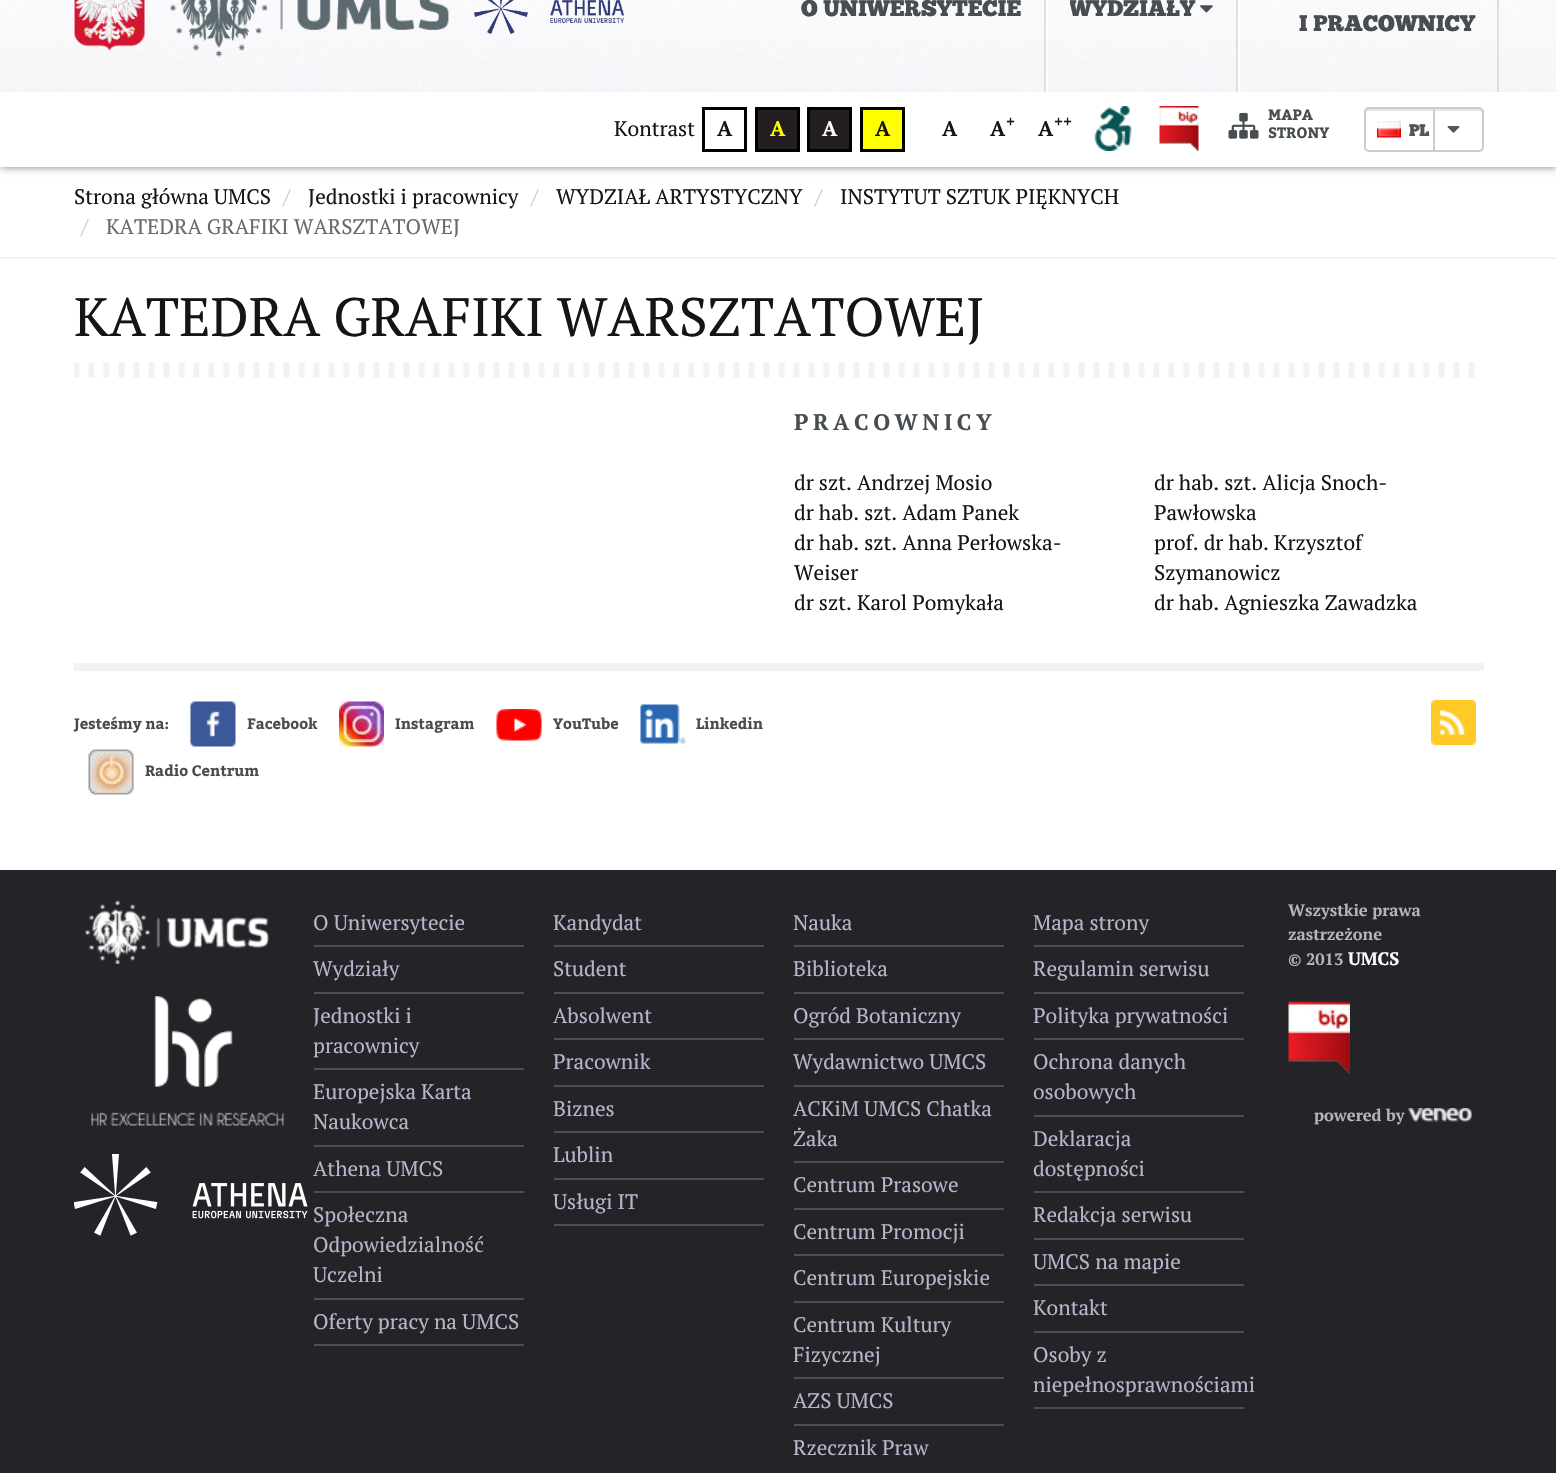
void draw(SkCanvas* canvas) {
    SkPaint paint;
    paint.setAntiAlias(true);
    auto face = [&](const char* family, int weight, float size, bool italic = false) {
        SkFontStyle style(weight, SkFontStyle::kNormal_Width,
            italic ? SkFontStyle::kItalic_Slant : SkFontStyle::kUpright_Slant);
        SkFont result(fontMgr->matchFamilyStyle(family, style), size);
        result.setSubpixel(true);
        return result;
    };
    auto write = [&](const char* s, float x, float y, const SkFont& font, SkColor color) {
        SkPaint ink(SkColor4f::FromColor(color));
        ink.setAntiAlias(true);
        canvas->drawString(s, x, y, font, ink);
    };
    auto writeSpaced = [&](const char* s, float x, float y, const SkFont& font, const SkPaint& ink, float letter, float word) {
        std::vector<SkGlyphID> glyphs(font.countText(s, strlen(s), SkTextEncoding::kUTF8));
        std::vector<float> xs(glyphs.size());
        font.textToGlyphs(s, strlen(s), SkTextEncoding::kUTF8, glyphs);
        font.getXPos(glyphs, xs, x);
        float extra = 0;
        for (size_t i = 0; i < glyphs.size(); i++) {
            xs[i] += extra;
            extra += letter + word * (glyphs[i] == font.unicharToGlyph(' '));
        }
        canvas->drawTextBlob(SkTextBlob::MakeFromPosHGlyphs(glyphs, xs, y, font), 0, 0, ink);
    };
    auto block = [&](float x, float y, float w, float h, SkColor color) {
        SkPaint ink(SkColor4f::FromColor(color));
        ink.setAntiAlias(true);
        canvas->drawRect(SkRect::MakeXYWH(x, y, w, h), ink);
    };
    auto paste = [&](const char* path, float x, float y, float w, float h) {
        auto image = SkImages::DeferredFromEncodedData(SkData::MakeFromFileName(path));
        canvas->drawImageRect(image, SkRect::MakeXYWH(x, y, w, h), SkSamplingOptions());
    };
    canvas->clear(SK_ColorWHITE);
    canvas->save();
    canvas->clipPath(SkPathBuilder(SkPathFillType::kEvenOdd).moveTo(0, 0).lineTo(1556, 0).lineTo(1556, 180).lineTo(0, 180).close().moveTo(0, -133).lineTo(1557, -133).lineTo(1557, 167).lineTo(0, 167).close().detach(), true);
    paint.setColor(SkColorSetARGB(128, 0, 0, 0));
    paint.setMaskFilter(SkMaskFilter::MakeBlur(kNormal_SkBlurStyle, 4));
    canvas->drawRect(SkRect::MakeXYWH(0, -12, 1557, 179), paint);
    paint.setMaskFilter(nullptr);
    canvas->restore();
    block(0, 91, 1556, 1, SkColorSetRGB(241, 242, 244));
    paste("pic1.png", 0, 0, 1556, 91);
    block(74, 0, 1245, 91, SkColorSetRGB(241, 242, 244));
    paste("pic2.png", 74, 0, 1245, 91);
    paste("pic3.png", 74, 0, 71, 51);
    paste("pic4.png", 170, 0, 279, 57);
    paste("pic5.png", 474, 0, 150, 34);
    block(1044, 0, 2, 92, SkColorSetRGB(223, 223, 223));
    auto kFont1 = face("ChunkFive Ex", 400, 22.5f);
    write("O UNIWERSYTECIE", 801, 16, kFont1, SkColorSetRGB(71, 77, 80));
    block(1236, 0, 2, 92, SkColorSetRGB(223, 223, 223));
    block(1046, 0, 2, 92, SK_ColorWHITE);
    canvas->save();
    canvas->clipRect(SkRect::MakeXYWH(1070, 0, 144, 24));
    write("WYDZIAŁY", 1069, 16, kFont1, SkColorSetRGB(71, 77, 80));
    canvas->restore();
    paste("pic6.png", 1200, 5, 13, 8);
    block(1497, 0, 2, 92, SkColorSetRGB(223, 223, 223));
    block(1238, 0, 2, 92, SK_ColorWHITE);
    write("I PRACOWNICY", 1299, 31, kFont1, SkColorSetRGB(71, 77, 80));
    auto kFont2 = face("PT Serif", 400, 21);
    write("Kontrast", 614, 136, kFont2, SkColorSetRGB(21, 21, 21));
    paint.setStyle(SkPaint::kStroke_Style);
    paint.setStrokeWidth(3);
    paint.setColor(SK_ColorBLACK);
    canvas->drawRect(SkRect::MakeXYWH(703.5f, 108.5f, 42, 42), paint);
    auto kFont3 = face("PT Serif", 700, 21);
    write("A", 717, 136, kFont3, SkColorSetRGB(21, 21, 21));
    paint.setStyle(SkPaint::kFill_Style);
    paint.setColor(SkColorSetRGB(35, 31, 32));
    canvas->drawRect(SkRect::MakeXYWH(756.5f, 108.5f, 42, 42), paint);
    paint.setStyle(SkPaint::kStroke_Style);
    paint.setColor(SK_ColorBLACK);
    canvas->drawRect(SkRect::MakeXYWH(756.5f, 108.5f, 42, 42), paint);
    write("A", 770, 136, kFont3, SkColorSetRGB(255, 255, 0));
    paint.setStyle(SkPaint::kFill_Style);
    paint.setColor(SkColorSetRGB(35, 31, 32));
    canvas->drawRect(SkRect::MakeXYWH(808.5f, 108.5f, 42, 42), paint);
    paint.setStyle(SkPaint::kStroke_Style);
    paint.setColor(SK_ColorBLACK);
    canvas->drawRect(SkRect::MakeXYWH(808.5f, 108.5f, 42, 42), paint);
    write("A", 822, 136, kFont3, SK_ColorWHITE);
    paint.setStyle(SkPaint::kFill_Style);
    paint.setColor(SkColorSetRGB(255, 255, 0));
    canvas->drawRect(SkRect::MakeXYWH(861.5f, 108.5f, 42, 42), paint);
    paint.setStyle(SkPaint::kStroke_Style);
    paint.setColor(SK_ColorBLACK);
    canvas->drawRect(SkRect::MakeXYWH(861.5f, 108.5f, 42, 42), paint);
    write("A", 875, 136, kFont3, SkColorSetRGB(21, 21, 21));
    write("A", 942, 136, kFont3, SkColorSetRGB(21, 21, 21));
    write("A", 990, 136, kFont3, SkColorSetRGB(21, 21, 21));
    auto kFont4 = face("PT Serif", 700, 16);
    write("+", 1006, 127, kFont4, SkColorSetRGB(21, 21, 21));
    write("A", 1038, 136, kFont3, SkColorSetRGB(21, 21, 21));
    write("++", 1054, 127, kFont4, SkColorSetRGB(21, 21, 21));
    paste("pic7.png", 1094, 106, 38, 45);
    paste("pic8.png", 1159, 106, 40, 45);
    paste("pic9.png", 1228, 112, 31, 27);
    auto kFont5 = face("Bitter", 700, 15);
    write("MAPA", 1268, 120, kFont5, SkColorSetRGB(71, 77, 80));
    write("STRONY", 1268, 138, kFont5, SkColorSetRGB(71, 77, 80));
    paint.setStyle(SkPaint::kFill_Style);
    paint.setColor(SkColorSetRGB(230, 230, 230));
    canvas->drawPath(SkPathBuilder().moveTo(1368, 111).lineTo(1479, 111).cubicTo(1481, 111, 1482, 112, 1482, 114).lineTo(1482, 111).cubicTo(1482, 109, 1481, 108, 1479, 108).lineTo(1368, 108).cubicTo(1366, 108, 1365, 109, 1365, 111).lineTo(1365, 114).cubicTo(1365, 112, 1366, 111, 1368, 111).close().detach(), paint);
    paint.setStyle(SkPaint::kStroke_Style);
    paint.setStrokeWidth(2);
    paint.setColor(SkColorSetRGB(204, 204, 204));
    canvas->drawRoundRect(SkRect::MakeXYWH(1365, 108, 118, 43), 4, 4, paint);
    paste("pic10.png", 1377, 121, 24, 17);
    auto kFont6 = face("ChunkFive Ex", 700, 16);
    write("PL", 1409, 136, kFont6, SkColorSetRGB(85, 85, 85));
    paint.setStyle(SkPaint::kFill_Style);
    paint.setColor(SK_ColorWHITE);
    canvas->drawPath(SkPathBuilder().moveTo(1433, 107).lineTo(1479, 107).cubicTo(1482, 107, 1484, 109, 1484, 112).lineTo(1484, 147).cubicTo(1484, 150, 1482, 152, 1479, 152).lineTo(1433, 152).close().detach(), paint);
    paint.setColor(SkColorSetRGB(230, 230, 230));
    canvas->drawPath(SkPathBuilder().moveTo(1434, 111).lineTo(1479, 111).cubicTo(1481, 111, 1482, 112, 1482, 114).lineTo(1482, 111).cubicTo(1482, 109, 1481, 108, 1479, 108).lineTo(1434, 108).close().detach(), paint);
    paint.setStyle(SkPaint::kStroke_Style);
    paint.setColor(SkColorSetRGB(204, 204, 204));
    canvas->drawPath(SkPathBuilder().moveTo(1434, 108).lineTo(1479, 108).cubicTo(1481, 108, 1483, 110, 1483, 112).lineTo(1483, 147).cubicTo(1483, 149, 1481, 151, 1479, 151).lineTo(1434, 151).close().detach(), paint);
    paste("pic11.png", 1447, 126, 13, 7);
    block(0, 257, 1556, 2, SkColorSetRGB(242, 242, 242));
    write("Strona główna UMCS", 74, 204, kFont2, SkColorSetRGB(21, 21, 21));
    write("/", 283, 204, kFont2, SkColorSetRGB(204, 204, 204));
    write("Jednostki i pracownicy", 308, 204, kFont2, SkColorSetRGB(21, 21, 21));
    write("/", 531, 204, kFont2, SkColorSetRGB(204, 204, 204));
    write("WYDZIAŁ ARTYSTYCZNY", 556, 204, kFont2, SkColorSetRGB(21, 21, 21));
    write("/", 815, 204, kFont2, SkColorSetRGB(204, 204, 204));
    write("INSTYTUT SZTUK PIĘKNYCH", 840, 204, kFont2, SkColorSetRGB(21, 21, 21));
    write("/", 81, 234, kFont2, SkColorSetRGB(204, 204, 204));
    write("KATEDRA GRAFIKI WARSZTATOWEJ", 106, 234, kFont2, SkColorSetRGB(106, 106, 106));
    auto kFont7 = face("PT Serif", 400, 54);
    write("KATEDRA GRAFIKI WARSZTATOWEJ", 74, 336, kFont7, SkColorSetRGB(21, 21, 21));
    paste("pic12.png", 74, 362, 1401, 16);
    auto kFont8 = face("PT Serif", 700, 22.5f);
    paint.setStyle(SkPaint::kFill_Style);
    paint.setColor(SkColorSetRGB(71, 77, 80));
    writeSpaced("PRACOWNICY", 794, 430, kFont8, paint, 4.5f, 0);
    write("dr szt. Andrzej Mosio", 794, 490, kFont2, SkColorSetRGB(21, 21, 21));
    write("dr hab. szt. Alicja Snoch-", 1154, 490, kFont2, SkColorSetRGB(21, 21, 21));
    write("Pawłowska", 1154, 520, kFont2, SkColorSetRGB(21, 21, 21));
    write("dr hab. szt. Adam Panek", 794, 520, kFont2, SkColorSetRGB(21, 21, 21));
    write("dr hab. szt. Anna Perłowska-", 794, 550, kFont2, SkColorSetRGB(21, 21, 21));
    write("Weiser", 794, 580, kFont2, SkColorSetRGB(21, 21, 21));
    write("prof. dr hab. Krzysztof", 1154, 550, kFont2, SkColorSetRGB(21, 21, 21));
    write("Szymanowicz", 1154, 580, kFont2, SkColorSetRGB(21, 21, 21));
    write("dr szt. Karol Pomykała", 794, 610, kFont2, SkColorSetRGB(21, 21, 21));
    write("dr hab. Agnieszka Zawadzka", 1154, 610, kFont2, SkColorSetRGB(21, 21, 21));
    block(74, 663, 1410, 8, SkColorSetRGB(241, 242, 244));
    write("Jesteśmy na:", 74, 729, kFont5, SkColorSetRGB(71, 77, 80));
    paste("pic13.png", 190, 701, 46, 46);
    write("Facebook", 247, 729, kFont5, SkColorSetRGB(71, 77, 80));
    paste("pic14.png", 339, 701, 45, 46);
    write("Instagram", 395, 729, kFont5, SkColorSetRGB(71, 77, 80));
    paste("pic15.png", 496, 709, 46, 32);
    write("YouTube", 553, 729, kFont5, SkColorSetRGB(71, 77, 80));
    paste("pic16.png", 640, 704, 46, 40);
    write("Linkedin", 696, 729, kFont5, SkColorSetRGB(71, 77, 80));
    paste("pic17.png", 88, 749, 46, 46);
    write("Radio Centrum", 145, 776, kFont5, SkColorSetRGB(71, 77, 80));
    paste("pic18.png", 1431, 700, 45, 45);
    block(0, 870, 1556, 603, SkColorSetRGB(36, 35, 40));
    paste("pic19.png", 85, 900, 184, 64);
    paste("pic20.png", 91, 996, 193, 130);
    paste("pic21.png", 74, 1154, 234, 82);
    block(314, 945, 210, 2, SkColorSetRGB(75, 78, 87));
    write("O Uniwersytecie", 313, 930, kFont2, SkColorSetRGB(180, 183, 202));
    block(314, 992, 210, 2, SkColorSetRGB(75, 78, 87));
    write("Wydziały", 313, 976, kFont2, SkColorSetRGB(180, 183, 202));
    block(314, 1068, 210, 2, SkColorSetRGB(75, 78, 87));
    write("Jednostki i", 313, 1023, kFont2, SkColorSetRGB(180, 183, 202));
    write("pracownicy", 313, 1053, kFont2, SkColorSetRGB(180, 183, 202));
    block(314, 1145, 210, 2, SkColorSetRGB(75, 78, 87));
    write("Europejska Karta", 313, 1099, kFont2, SkColorSetRGB(180, 183, 202));
    write("Naukowca", 313, 1129, kFont2, SkColorSetRGB(180, 183, 202));
    block(314, 1191, 210, 2, SkColorSetRGB(75, 78, 87));
    write("Athena UMCS", 313, 1176, kFont2, SkColorSetRGB(180, 183, 202));
    block(314, 1298, 210, 2, SkColorSetRGB(75, 78, 87));
    write("Społeczna", 313, 1222, kFont2, SkColorSetRGB(180, 183, 202));
    write("Odpowiedzialność", 313, 1252, kFont2, SkColorSetRGB(180, 183, 202));
    write("Uczelni", 313, 1282, kFont2, SkColorSetRGB(180, 183, 202));
    block(314, 1344, 210, 2, SkColorSetRGB(75, 78, 87));
    write("Oferty pracy na UMCS", 313, 1329, kFont2, SkColorSetRGB(180, 183, 202));
    block(554, 945, 210, 2, SkColorSetRGB(75, 78, 87));
    write("Kandydat", 553, 930, kFont2, SkColorSetRGB(180, 183, 202));
    block(554, 992, 210, 2, SkColorSetRGB(75, 78, 87));
    write("Student", 553, 976, kFont2, SkColorSetRGB(180, 183, 202));
    block(554, 1038, 210, 2, SkColorSetRGB(75, 78, 87));
    write("Absolwent", 553, 1023, kFont2, SkColorSetRGB(180, 183, 202));
    block(554, 1085, 210, 2, SkColorSetRGB(75, 78, 87));
    write("Pracownik", 553, 1069, kFont2, SkColorSetRGB(180, 183, 202));
    block(554, 1131, 210, 2, SkColorSetRGB(75, 78, 87));
    write("Biznes", 553, 1116, kFont2, SkColorSetRGB(180, 183, 202));
    block(554, 1178, 210, 2, SkColorSetRGB(75, 78, 87));
    write("Lublin", 553, 1162, kFont2, SkColorSetRGB(180, 183, 202));
    block(554, 1224, 210, 2, SkColorSetRGB(75, 78, 87));
    write("Usługi IT", 553, 1209, kFont2, SkColorSetRGB(180, 183, 202));
    block(794, 945, 210, 2, SkColorSetRGB(75, 78, 87));
    write("Nauka", 793, 930, kFont2, SkColorSetRGB(180, 183, 202));
    block(794, 992, 210, 2, SkColorSetRGB(75, 78, 87));
    write("Biblioteka", 793, 976, kFont2, SkColorSetRGB(180, 183, 202));
    block(794, 1038, 210, 2, SkColorSetRGB(75, 78, 87));
    write("Ogród Botaniczny", 793, 1023, kFont2, SkColorSetRGB(180, 183, 202));
    block(794, 1085, 210, 2, SkColorSetRGB(75, 78, 87));
    write("Wydawnictwo UMCS", 793, 1069, kFont2, SkColorSetRGB(180, 183, 202));
    block(794, 1161, 210, 2, SkColorSetRGB(75, 78, 87));
    write("ACKiM UMCS Chatka", 793, 1116, kFont2, SkColorSetRGB(180, 183, 202));
    write("Żaka", 793, 1146, kFont2, SkColorSetRGB(180, 183, 202));
    block(794, 1208, 210, 2, SkColorSetRGB(75, 78, 87));
    write("Centrum Prasowe", 793, 1192, kFont2, SkColorSetRGB(180, 183, 202));
    block(794, 1254, 210, 2, SkColorSetRGB(75, 78, 87));
    write("Centrum Promocji", 793, 1239, kFont2, SkColorSetRGB(180, 183, 202));
    block(794, 1301, 210, 2, SkColorSetRGB(75, 78, 87));
    write("Centrum Europejskie", 793, 1285, kFont2, SkColorSetRGB(180, 183, 202));
    block(794, 1377, 210, 2, SkColorSetRGB(75, 78, 87));
    write("Centrum Kultury", 793, 1332, kFont2, SkColorSetRGB(180, 183, 202));
    write("Fizycznej", 793, 1362, kFont2, SkColorSetRGB(180, 183, 202));
    block(794, 1424, 210, 2, SkColorSetRGB(75, 78, 87));
    write("AZS UMCS", 793, 1408, kFont2, SkColorSetRGB(180, 183, 202));
    write("Rzecznik Praw", 793, 1455, kFont2, SkColorSetRGB(180, 183, 202));
    block(1034, 945, 210, 2, SkColorSetRGB(75, 78, 87));
    write("Mapa strony", 1033, 930, kFont2, SkColorSetRGB(180, 183, 202));
    block(1034, 992, 210, 2, SkColorSetRGB(75, 78, 87));
    write("Regulamin serwisu", 1033, 976, kFont2, SkColorSetRGB(180, 183, 202));
    block(1034, 1038, 210, 2, SkColorSetRGB(75, 78, 87));
    write("Polityka prywatności", 1033, 1023, kFont2, SkColorSetRGB(180, 183, 202));
    block(1034, 1115, 210, 2, SkColorSetRGB(75, 78, 87));
    write("Ochrona danych", 1033, 1069, kFont2, SkColorSetRGB(180, 183, 202));
    write("osobowych", 1033, 1099, kFont2, SkColorSetRGB(180, 183, 202));
    block(1034, 1191, 210, 2, SkColorSetRGB(75, 78, 87));
    write("Deklaracja", 1033, 1146, kFont2, SkColorSetRGB(180, 183, 202));
    write("dostępności", 1033, 1176, kFont2, SkColorSetRGB(180, 183, 202));
    block(1034, 1238, 210, 2, SkColorSetRGB(75, 78, 87));
    write("Redakcja serwisu", 1033, 1222, kFont2, SkColorSetRGB(180, 183, 202));
    block(1034, 1284, 210, 2, SkColorSetRGB(75, 78, 87));
    write("UMCS na mapie", 1033, 1269, kFont2, SkColorSetRGB(180, 183, 202));
    block(1034, 1331, 210, 2, SkColorSetRGB(75, 78, 87));
    write("Kontakt", 1033, 1315, kFont2, SkColorSetRGB(180, 183, 202));
    block(1034, 1407, 210, 2, SkColorSetRGB(75, 78, 87));
    write("Osoby z", 1033, 1362, kFont2, SkColorSetRGB(180, 183, 202));
    write("niepełnosprawnościami", 1033, 1392, kFont2, SkColorSetRGB(180, 183, 202));
    auto kFont9 = face("PT Serif", 700, 16.5f);
    write("Wszystkie prawa", 1288, 916, kFont9, SkColorSetRGB(178, 181, 191));
    write("zastrzeżone", 1288, 940, kFont9, SkColorSetRGB(178, 181, 191));
    write("© 2013", 1288, 965, kFont9, SkColorSetRGB(178, 181, 191));
    auto kFont10 = face("PT Serif", 700, 18);
    write("UMCS", 1348, 965, kFont10, SK_ColorWHITE);
    paste("pic22.png", 1288, 1001, 62, 73);
    write("powered by", 1314, 1121, kFont9, SkColorSetRGB(178, 181, 191));
    paste("pic23.png", 1408, 1108, 64, 14);
}
